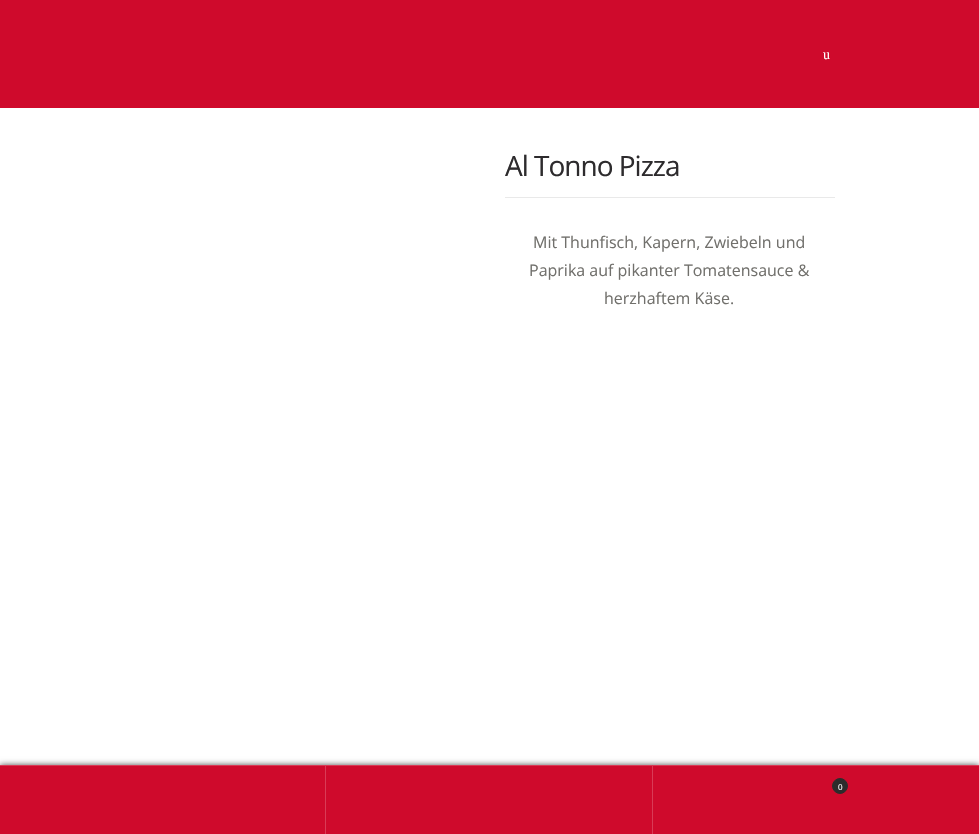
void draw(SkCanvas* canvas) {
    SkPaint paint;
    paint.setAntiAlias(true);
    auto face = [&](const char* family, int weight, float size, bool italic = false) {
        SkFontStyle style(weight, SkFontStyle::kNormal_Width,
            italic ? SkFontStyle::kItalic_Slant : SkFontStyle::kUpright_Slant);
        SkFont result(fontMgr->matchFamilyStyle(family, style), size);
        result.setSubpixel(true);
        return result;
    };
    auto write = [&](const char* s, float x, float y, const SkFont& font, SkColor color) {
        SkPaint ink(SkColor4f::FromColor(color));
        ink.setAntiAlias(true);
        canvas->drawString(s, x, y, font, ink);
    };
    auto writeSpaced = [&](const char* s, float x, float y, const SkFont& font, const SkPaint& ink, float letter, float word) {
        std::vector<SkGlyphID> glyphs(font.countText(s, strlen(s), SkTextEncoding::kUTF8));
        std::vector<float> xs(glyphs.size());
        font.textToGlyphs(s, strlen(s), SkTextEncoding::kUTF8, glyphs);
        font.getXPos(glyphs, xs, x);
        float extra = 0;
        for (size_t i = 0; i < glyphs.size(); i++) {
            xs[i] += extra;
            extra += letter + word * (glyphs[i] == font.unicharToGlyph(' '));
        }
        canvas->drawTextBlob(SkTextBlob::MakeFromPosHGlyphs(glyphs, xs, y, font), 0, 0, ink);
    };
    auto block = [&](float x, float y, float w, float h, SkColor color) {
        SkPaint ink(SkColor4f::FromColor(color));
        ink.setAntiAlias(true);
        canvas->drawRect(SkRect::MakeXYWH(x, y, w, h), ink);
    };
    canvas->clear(SK_ColorWHITE);
    block(0, 0, 979, 108, SkColorSetRGB(207, 10, 44));
    auto kFont1 = face("Liberation Serif", 400, 14);
    write("u", 823, 59, kFont1, SK_ColorWHITE);
    block(505, 197, 330, 1, SkColorSetRGB(233, 233, 233));
    auto kFont2 = face("Open Sans", 400, 28);
    paint.setColor(SkColorSetRGB(45, 43, 45));
    writeSpaced("Al Tonno Pizza", 505, 176, kFont2, paint, -1, 0);
    auto kFont3 = face("Open Sans", 400, 16);
    write("Mit Thunfisch, Kapern, Zwiebeln und", 533, 248, kFont3, SkColorSetRGB(113, 112, 108));
    write("Paprika auf pikanter Tomatensauce &", 529, 276, kFont3, SkColorSetRGB(113, 112, 108));
    write("herzhaftem Käse.", 604, 304, kFont3, SkColorSetRGB(113, 112, 108));
    paint.setColor(SkColorSetARGB(179, 0, 0, 0));
    paint.setMaskFilter(SkMaskFilter::MakeBlur(kNormal_SkBlurStyle, 3));
    canvas->drawRect(SkRect::MakeXYWH(0, 765, 979, 69), paint);
    paint.setMaskFilter(nullptr);
    block(0, 766, 979, 68, SkColorSetRGB(207, 10, 44));
    block(0, 765, 979, 1, SkColorSetRGB(217, 59, 86));
    block(325, 766, 1, 68, SkColorSetRGB(217, 59, 86));
    block(652, 766, 1, 68, SkColorSetRGB(217, 59, 86));
    paint.setColor(SkColorSetRGB(44, 44, 44));
    canvas->drawCircle(840, 786, 7.5f, paint);
    paint.setStyle(SkPaint::kStroke_Style);
    paint.setStrokeWidth(1);
    canvas->drawCircle(840, 786, 7.5f, paint);
    auto kFont4 = face("Open Sans", 400, 8);
    write("0", 838, 790, kFont4, SK_ColorWHITE);
}
